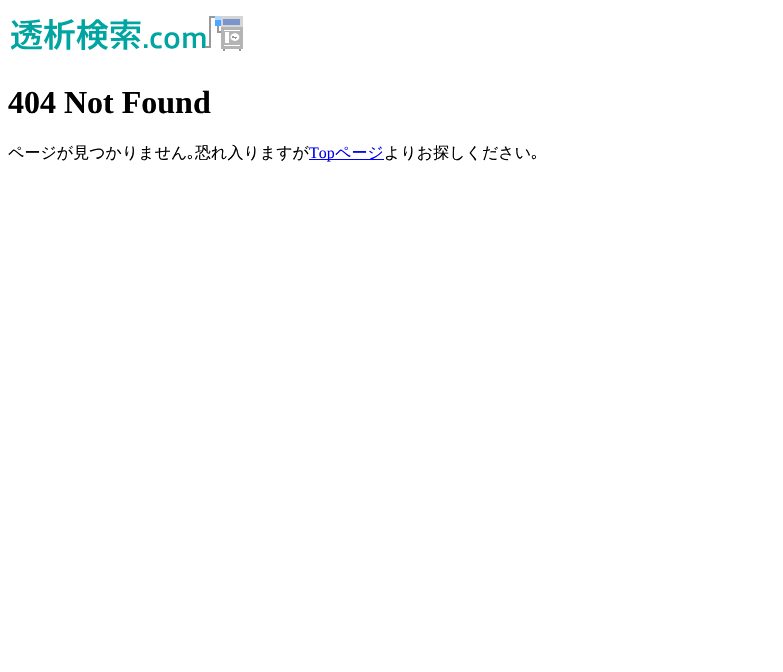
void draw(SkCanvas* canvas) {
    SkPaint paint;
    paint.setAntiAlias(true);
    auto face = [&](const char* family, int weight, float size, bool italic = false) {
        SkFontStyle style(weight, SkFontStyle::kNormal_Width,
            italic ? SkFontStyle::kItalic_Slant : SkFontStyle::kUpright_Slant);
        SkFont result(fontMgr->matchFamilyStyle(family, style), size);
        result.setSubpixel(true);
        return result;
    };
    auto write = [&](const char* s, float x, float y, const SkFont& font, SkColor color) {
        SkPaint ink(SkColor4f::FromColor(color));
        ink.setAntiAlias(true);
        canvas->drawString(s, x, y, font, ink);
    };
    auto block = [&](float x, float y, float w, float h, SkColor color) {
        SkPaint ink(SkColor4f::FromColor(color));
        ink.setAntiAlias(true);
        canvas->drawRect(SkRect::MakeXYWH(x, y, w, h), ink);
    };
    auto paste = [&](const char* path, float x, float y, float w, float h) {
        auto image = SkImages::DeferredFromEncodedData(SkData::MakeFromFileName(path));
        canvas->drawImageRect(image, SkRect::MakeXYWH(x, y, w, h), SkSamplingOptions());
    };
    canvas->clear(SK_ColorWHITE);
    paste("pic1.png", 10, 16, 233, 35);
    auto kFont1 = face("Liberation Serif", 700, 32);
    write("404 Not Found", 8, 113, kFont1, SK_ColorBLACK);
    auto kFont2 = face("WenQuanYi Zen Hei", 500, 16);
    write("ページが見つかりません", 8, 158, kFont2, SK_ColorBLACK);
    auto kFont3 = face("IPAPGothic", 400, 16);
    write("｡", 187, 158, kFont3, SK_ColorBLACK);
    write("恐れ入りますが", 195, 158, kFont2, SK_ColorBLACK);
    block(309, 159, 75, 1, SkColorSetRGB(0, 0, 238));
    auto kFont4 = face("Liberation Serif", 400, 16);
    write("Top", 309, 158, kFont4, SkColorSetRGB(0, 0, 238));
    write("ページ", 335, 158, kFont2, SkColorSetRGB(0, 0, 238));
    write("よりお探しください", 384, 158, kFont2, SK_ColorBLACK);
    write("｡", 531, 158, kFont3, SK_ColorBLACK);
}
